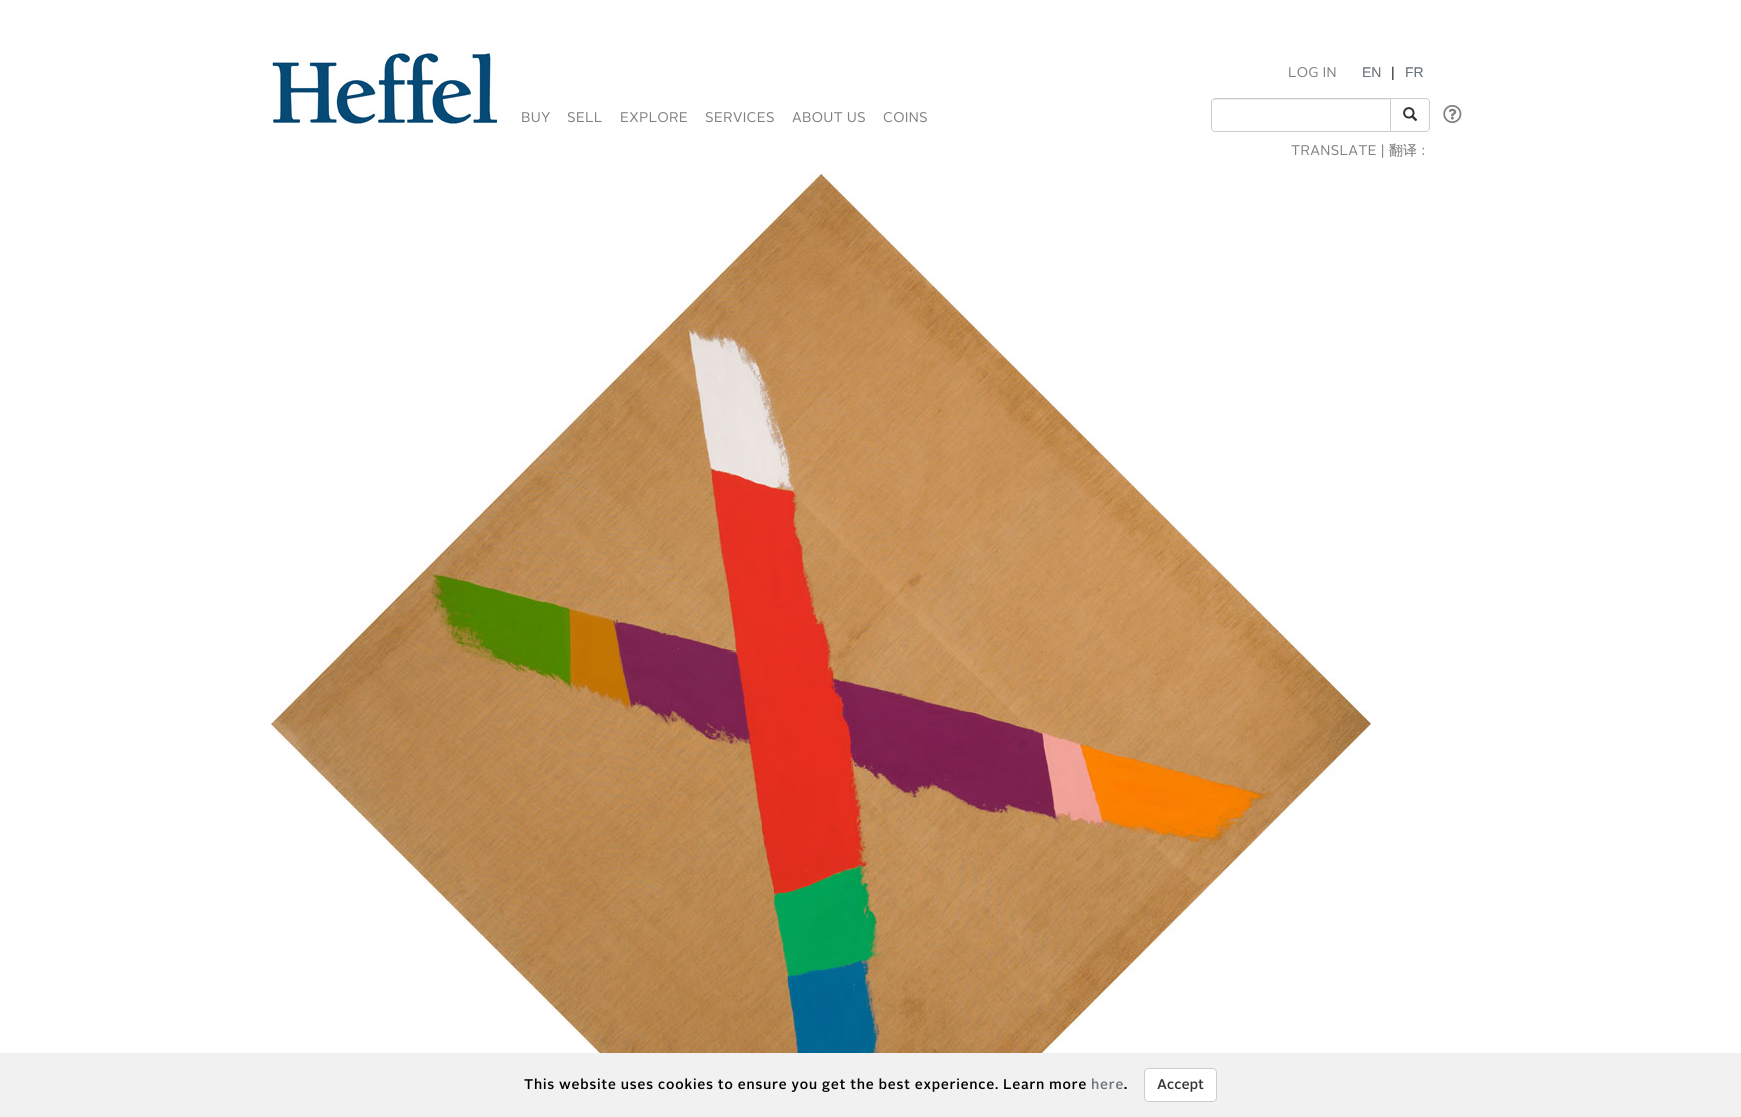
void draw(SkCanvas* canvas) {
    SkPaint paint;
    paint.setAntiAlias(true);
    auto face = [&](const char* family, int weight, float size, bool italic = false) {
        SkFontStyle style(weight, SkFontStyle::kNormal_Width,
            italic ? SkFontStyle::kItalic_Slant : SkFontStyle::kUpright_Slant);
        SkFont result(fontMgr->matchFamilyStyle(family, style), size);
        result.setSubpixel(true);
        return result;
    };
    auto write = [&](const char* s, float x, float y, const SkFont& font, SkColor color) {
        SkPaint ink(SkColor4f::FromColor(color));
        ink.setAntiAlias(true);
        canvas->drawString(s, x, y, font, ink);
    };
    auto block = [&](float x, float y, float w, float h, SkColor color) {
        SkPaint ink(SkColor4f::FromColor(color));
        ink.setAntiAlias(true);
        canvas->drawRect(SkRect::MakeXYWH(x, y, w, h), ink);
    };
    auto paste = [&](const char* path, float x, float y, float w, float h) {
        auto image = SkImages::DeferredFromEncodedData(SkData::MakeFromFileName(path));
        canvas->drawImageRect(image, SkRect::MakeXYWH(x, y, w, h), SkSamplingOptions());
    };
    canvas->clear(SK_ColorWHITE);
    paste("pic1.png", 272, 53, 225, 71);
    paste("pic2.png", 522, 112, 28, 11);
    paste("pic3.png", 567, 112, 35, 11);
    paste("pic4.png", 621, 112, 66, 11);
    paste("pic5.png", 705, 112, 69, 11);
    paste("pic6.png", 792, 112, 73, 11);
    paste("pic7.png", 883, 112, 44, 11);
    paste("pic8.png", 1289, 67, 47, 11);
    auto kFont1 = face("Liberation Sans", 400, 14);
    write("EN", 1362, 77, kFont1, SkColorSetRGB(108, 117, 125));
    write("|", 1391, 77, kFont1, SkColorSetRGB(51, 51, 51));
    write("FR", 1405, 77, kFont1, SkColorSetRGB(108, 117, 125));
    paint.setColor(SkColorSetRGB(236, 236, 236));
    canvas->drawPath(SkPathBuilder().moveTo(1215, 100).lineTo(1390, 100).lineTo(1390, 99).lineTo(1214, 99).cubicTo(1212, 100, 1212, 101, 1212, 103).cubicTo(1212, 101, 1213, 100, 1215, 100).close().detach(), paint);
    paint.setStyle(SkPaint::kStroke_Style);
    paint.setStrokeWidth(1);
    paint.setColor(SkColorSetRGB(204, 204, 204));
    canvas->drawPath(SkPathBuilder().moveTo(1215, 98.5f).lineTo(1390.5f, 98.5f).lineTo(1390.5f, 131.5f).lineTo(1215, 131.5f).cubicTo(1213, 131.5f, 1211.5f, 130, 1211.5f, 128).lineTo(1211.5f, 102).cubicTo(1211.5f, 100, 1213, 98.5f, 1215, 98.5f).close().detach(), paint);
    paint.setStyle(SkPaint::kFill_Style);
    paint.setColor(SK_ColorWHITE);
    canvas->drawPath(SkPathBuilder().moveTo(1390.5f, 98.5f).lineTo(1426, 98.5f).cubicTo(1428, 98.5f, 1429.5f, 100, 1429.5f, 102).lineTo(1429.5f, 128).cubicTo(1429.5f, 130, 1428, 131.5f, 1426, 131.5f).lineTo(1390.5f, 131.5f).close().detach(), paint);
    paint.setStyle(SkPaint::kStroke_Style);
    paint.setColor(SkColorSetRGB(204, 204, 204));
    canvas->drawPath(SkPathBuilder().moveTo(1390.5f, 98.5f).lineTo(1426, 98.5f).cubicTo(1428, 98.5f, 1429.5f, 100, 1429.5f, 102).lineTo(1429.5f, 128).cubicTo(1429.5f, 130, 1428, 131.5f, 1426, 131.5f).lineTo(1390.5f, 131.5f).close().detach(), paint);
    paste("pic9.png", 1403, 107, 15, 14);
    paste("pic10.png", 1443, 105, 19, 18);
    paste("pic11.png", 1291, 144, 93, 14);
    auto kFont2 = face("WenQuanYi Zen Hei", 500, 14);
    write("翻译", 1389, 155, kFont2, SkColorSetRGB(128, 128, 128));
    paste("pic12.png", 1422, 147, 2, 8);
    paste("pic13.png", 271, 174, 1100, 879);
    block(0, 1053, 1741, 64, SkColorSetRGB(241, 241, 241));
    paste("pic14.png", 524, 1078, 562, 14);
    paste("pic15.png", 1092, 1078, 31, 12);
    paint.setStyle(SkPaint::kFill_Style);
    paint.setColor(SK_ColorBLACK);
    canvas->drawPath(SkPathBuilder().moveTo(1124.5f, 1089).lineTo(1126.5f, 1089).lineTo(1126.5f, 1087).lineTo(1124.5f, 1087).close().detach(), paint);
    paint.setColor(SK_ColorWHITE);
    canvas->drawRoundRect(SkRect::MakeXYWH(1144.5f, 1068.5f, 72, 33), 3.5f, 3.5f, paint);
    paint.setStyle(SkPaint::kStroke_Style);
    paint.setColor(SkColorSetRGB(204, 204, 204));
    canvas->drawRoundRect(SkRect::MakeXYWH(1144.5f, 1068.5f, 72, 33), 3.5f, 3.5f, paint);
    paste("pic16.png", 1157, 1079, 47, 13);
}
